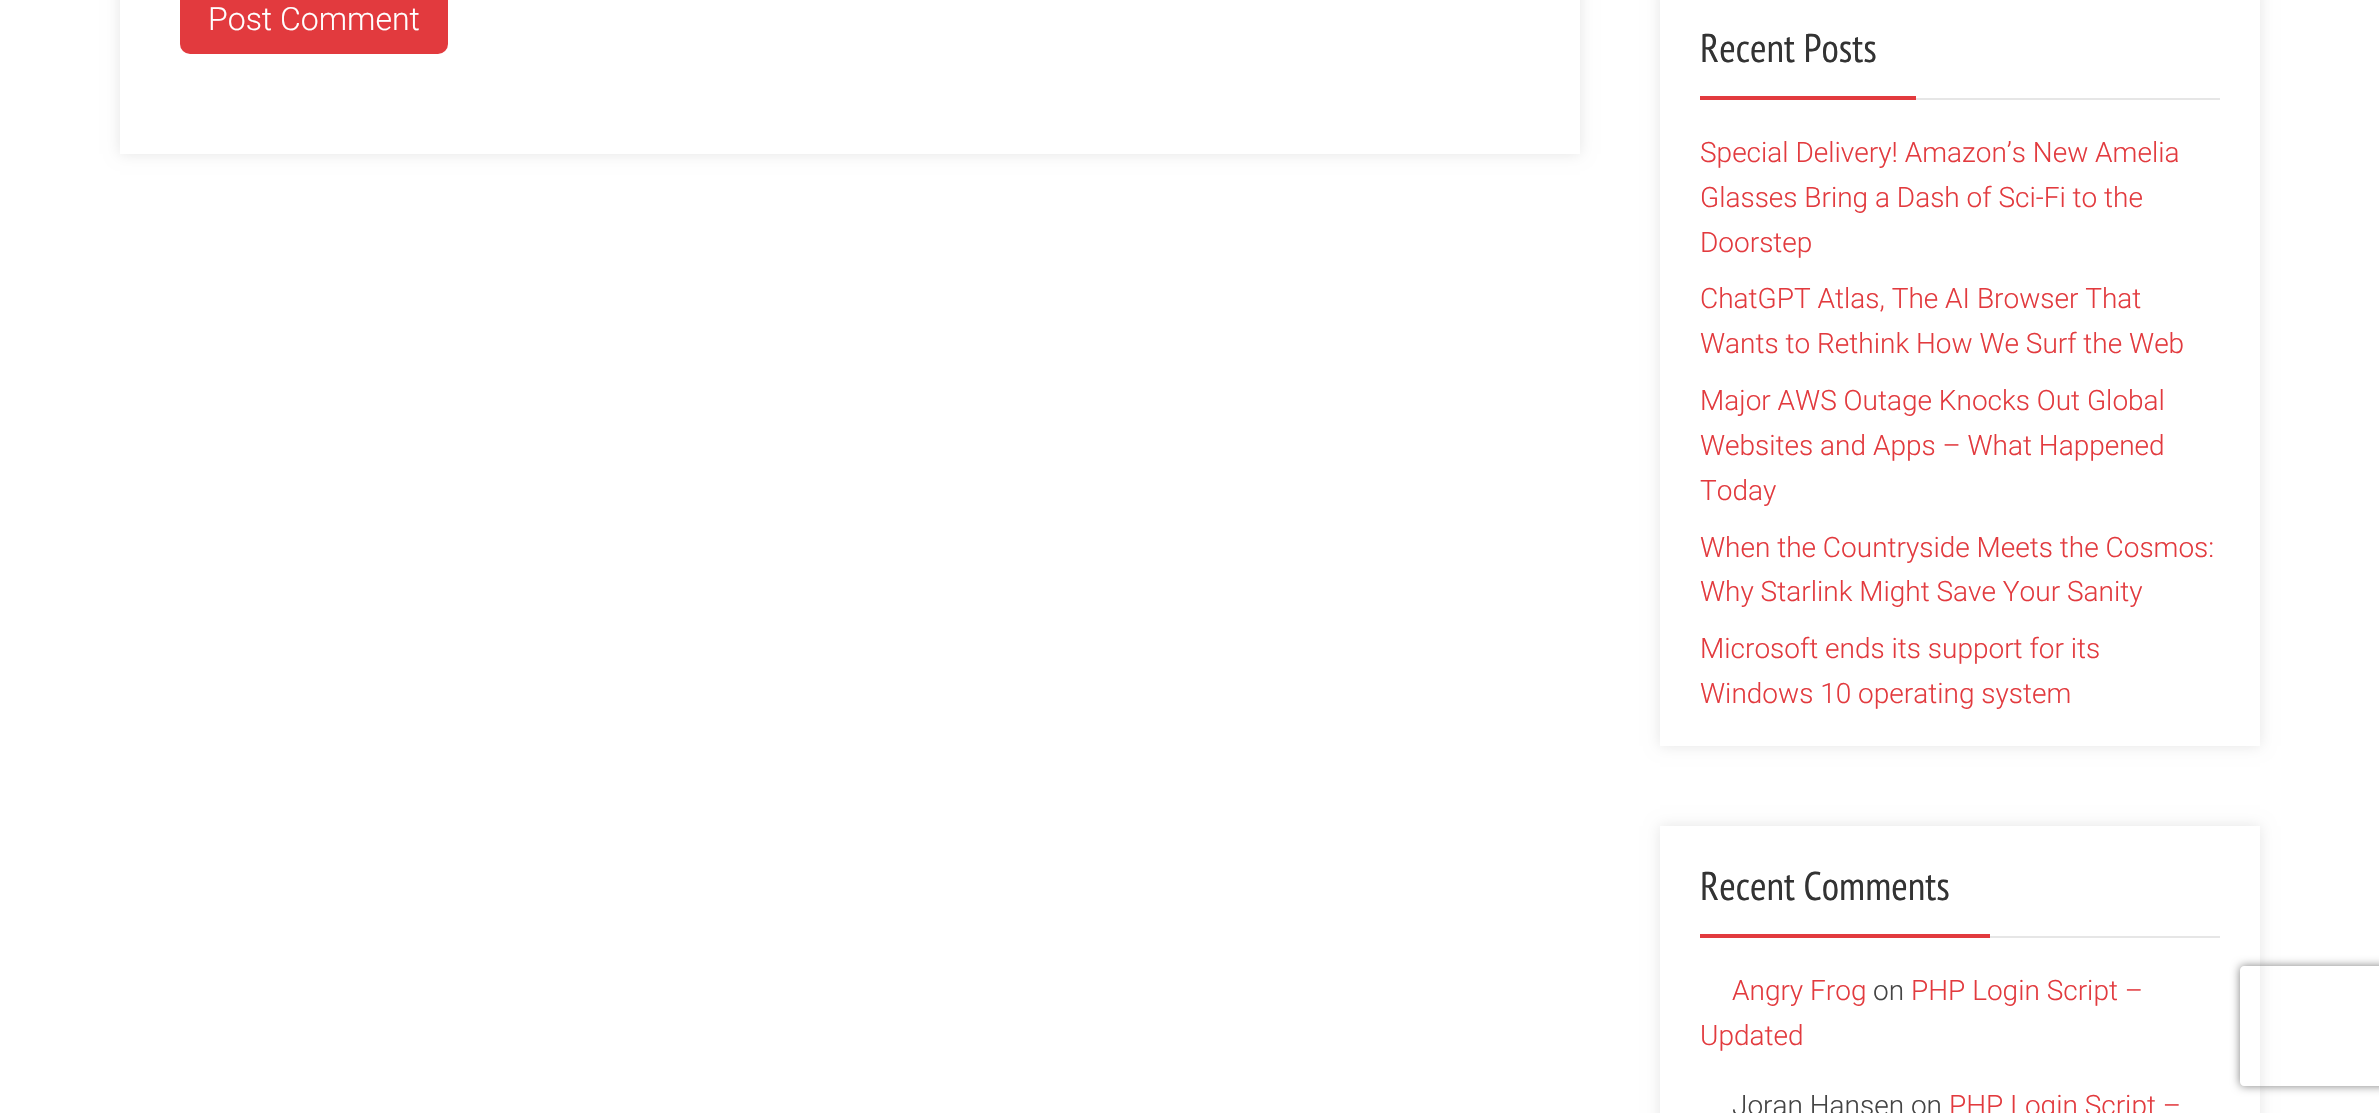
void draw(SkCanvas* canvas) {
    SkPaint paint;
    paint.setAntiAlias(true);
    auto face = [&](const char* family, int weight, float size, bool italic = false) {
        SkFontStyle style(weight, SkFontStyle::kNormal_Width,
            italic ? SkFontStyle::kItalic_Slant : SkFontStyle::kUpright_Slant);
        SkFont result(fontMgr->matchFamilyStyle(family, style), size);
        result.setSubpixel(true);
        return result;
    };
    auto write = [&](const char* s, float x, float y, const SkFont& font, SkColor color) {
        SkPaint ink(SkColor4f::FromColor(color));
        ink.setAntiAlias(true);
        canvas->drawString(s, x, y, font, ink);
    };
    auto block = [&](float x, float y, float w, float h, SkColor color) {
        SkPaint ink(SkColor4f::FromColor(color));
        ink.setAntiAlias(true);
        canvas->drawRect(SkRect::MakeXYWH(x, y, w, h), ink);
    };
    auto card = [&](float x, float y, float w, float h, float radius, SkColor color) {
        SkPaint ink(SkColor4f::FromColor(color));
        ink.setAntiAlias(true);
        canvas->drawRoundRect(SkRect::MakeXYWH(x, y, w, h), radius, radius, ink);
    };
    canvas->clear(SK_ColorWHITE);
    canvas->save();
    canvas->clipPath(SkPathBuilder(SkPathFillType::kEvenOdd).moveTo(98, 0).lineTo(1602, 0).lineTo(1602, 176).lineTo(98, 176).close().moveTo(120, -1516).lineTo(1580, -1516).lineTo(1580, 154).lineTo(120, 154).close().detach(), true);
    paint.setColor(SkColorSetARGB(26, 0, 0, 0));
    paint.setMaskFilter(SkMaskFilter::MakeBlur(kNormal_SkBlurStyle, 7));
    canvas->drawRect(SkRect::MakeXYWH(120, -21, 1460, 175), paint);
    paint.setMaskFilter(nullptr);
    canvas->restore();
    card(180, -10, 268, 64, 10, SkColorSetRGB(226, 58, 62));
    auto kFont1 = face("Roboto", 300, 32);
    write("Post Comment", 208, 30, kFont1, SK_ColorWHITE);
    canvas->save();
    canvas->clipPath(SkPathBuilder(SkPathFillType::kEvenOdd).moveTo(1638, 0).lineTo(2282, 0).lineTo(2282, 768).lineTo(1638, 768).close().moveTo(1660, -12).lineTo(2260, -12).lineTo(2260, 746).lineTo(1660, 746).close().detach(), true);
    paint.setMaskFilter(SkMaskFilter::MakeBlur(kNormal_SkBlurStyle, 7));
    canvas->drawRect(SkRect::MakeXYWH(1660, -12, 600, 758), paint);
    paint.setMaskFilter(nullptr);
    canvas->restore();
    block(1916, 98, 304, 2, SkColorSetRGB(230, 230, 230));
    block(1700, 96, 216, 4, SkColorSetRGB(226, 58, 62));
    auto kFont2 = face("PT Sans Narrow", 400, 40);
    write("Recent Posts", 1700, 62, kFont2, SkColorSetRGB(51, 51, 51));
    auto kFont3 = face("Roboto", 300, 28);
    write("Special Delivery! Amazon’s New Amelia", 1700, 162, kFont3, SkColorSetRGB(226, 58, 62));
    write("Glasses Bring a Dash of Sci-Fi to the", 1700, 207, kFont3, SkColorSetRGB(226, 58, 62));
    write("Doorstep", 1700, 252, kFont3, SkColorSetRGB(226, 58, 62));
    write("ChatGPT Atlas, The AI Browser That", 1700, 308, kFont3, SkColorSetRGB(226, 58, 62));
    write("Wants to Rethink How We Surf the Web", 1700, 353, kFont3, SkColorSetRGB(226, 58, 62));
    write("Major AWS Outage Knocks Out Global", 1700, 410, kFont3, SkColorSetRGB(226, 58, 62));
    write("Websites and Apps – What Happened", 1700, 455, kFont3, SkColorSetRGB(226, 58, 62));
    write("Today", 1700, 500, kFont3, SkColorSetRGB(226, 58, 62));
    write("When the Countryside Meets the Cosmos:", 1700, 557, kFont3, SkColorSetRGB(226, 58, 62));
    write("Why Starlink Might Save Your Sanity", 1700, 601, kFont3, SkColorSetRGB(226, 58, 62));
    write("Microsoft ends its support for its", 1700, 658, kFont3, SkColorSetRGB(226, 58, 62));
    write("Windows 10 operating system", 1700, 703, kFont3, SkColorSetRGB(226, 58, 62));
    canvas->save();
    canvas->clipPath(SkPathBuilder(SkPathFillType::kEvenOdd).moveTo(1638, 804).lineTo(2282, 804).lineTo(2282, 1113).lineTo(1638, 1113).close().moveTo(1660, 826).lineTo(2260, 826).lineTo(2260, 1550).lineTo(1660, 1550).close().detach(), true);
    paint.setMaskFilter(SkMaskFilter::MakeBlur(kNormal_SkBlurStyle, 7));
    canvas->drawRect(SkRect::MakeXYWH(1660, 826, 600, 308), paint);
    paint.setMaskFilter(nullptr);
    canvas->restore();
    block(1990, 936, 230, 2, SkColorSetRGB(230, 230, 230));
    block(1700, 934, 290, 4, SkColorSetRGB(226, 58, 62));
    write("Recent Comments", 1700, 900, kFont2, SkColorSetRGB(51, 51, 51));
    write("Angry Frog", 1732, 1000, kFont3, SkColorSetRGB(226, 58, 62));
    write("on", 1873, 1000, kFont3, SkColorSetRGB(68, 68, 68));
    write("PHP Login Script –", 1911, 1000, kFont3, SkColorSetRGB(226, 58, 62));
    write("Updated", 1700, 1045, kFont3, SkColorSetRGB(226, 58, 62));
    write("Joran Hansen on", 1732, 1115, kFont3, SkColorSetRGB(68, 68, 68));
    write("PHP Login Script –", 1949, 1115, kFont3, SkColorSetRGB(226, 58, 62));
    canvas->save();
    canvas->clipPath(SkPathBuilder(SkPathFillType::kEvenOdd).moveTo(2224, 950).lineTo(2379, 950).lineTo(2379, 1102).lineTo(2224, 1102).close().moveTo(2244, 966).lineTo(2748, 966).cubicTo(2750, 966, 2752, 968, 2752, 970).lineTo(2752, 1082).cubicTo(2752, 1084, 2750, 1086, 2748, 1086).lineTo(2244, 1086).cubicTo(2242, 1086, 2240, 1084, 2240, 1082).lineTo(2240, 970).cubicTo(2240, 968, 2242, 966, 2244, 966).close().detach(), true);
    paint.setColor(SkColorSetRGB(128, 128, 128));
    paint.setMaskFilter(SkMaskFilter::MakeBlur(kNormal_SkBlurStyle, 5));
    canvas->drawRoundRect(SkRect::MakeXYWH(2240, 966, 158, 120), 4, 4, paint);
    paint.setMaskFilter(nullptr);
    canvas->restore();
}
